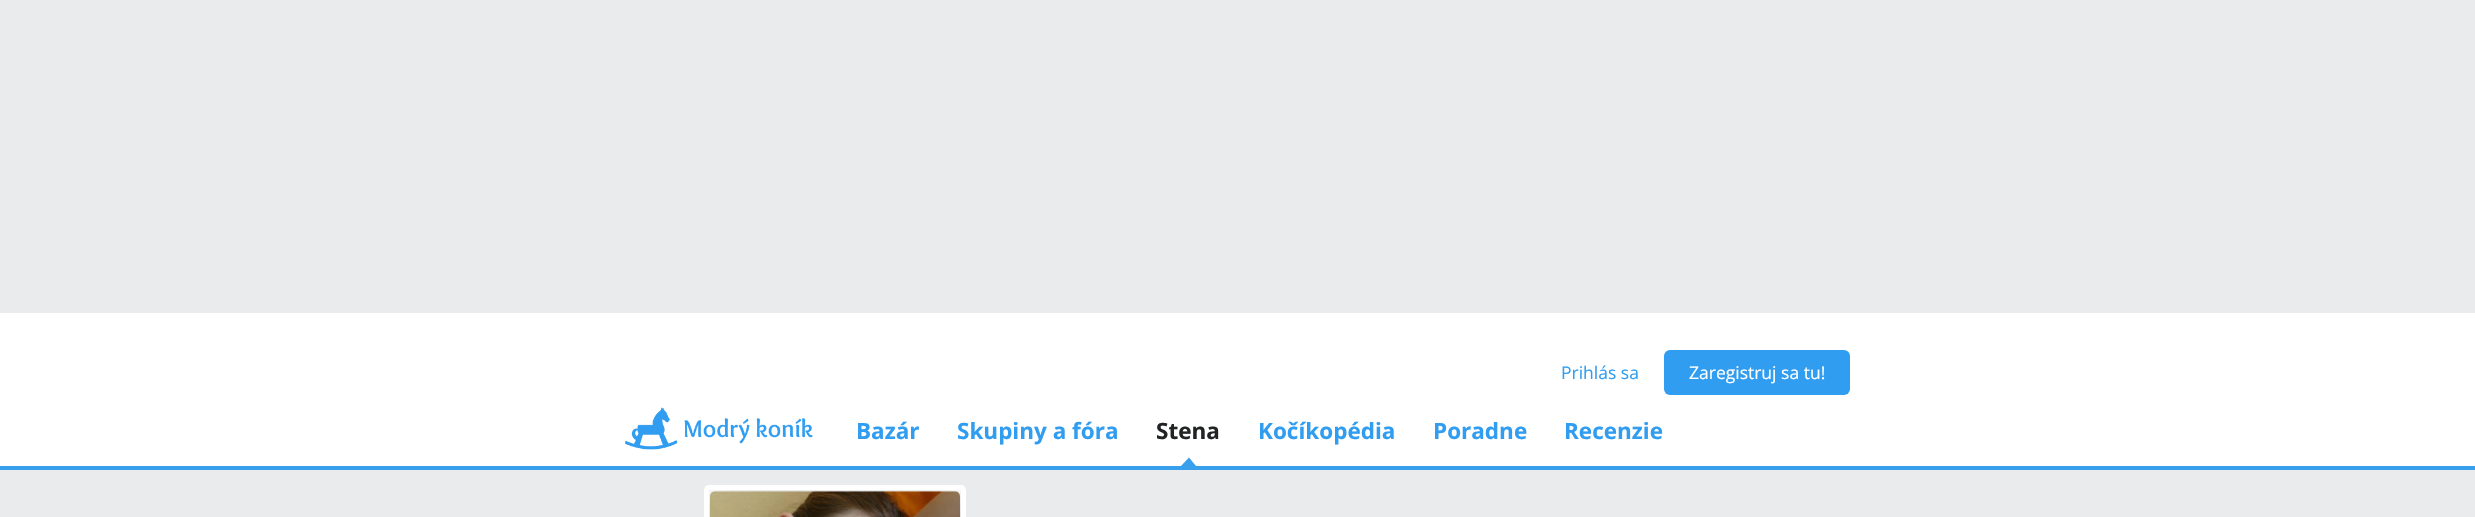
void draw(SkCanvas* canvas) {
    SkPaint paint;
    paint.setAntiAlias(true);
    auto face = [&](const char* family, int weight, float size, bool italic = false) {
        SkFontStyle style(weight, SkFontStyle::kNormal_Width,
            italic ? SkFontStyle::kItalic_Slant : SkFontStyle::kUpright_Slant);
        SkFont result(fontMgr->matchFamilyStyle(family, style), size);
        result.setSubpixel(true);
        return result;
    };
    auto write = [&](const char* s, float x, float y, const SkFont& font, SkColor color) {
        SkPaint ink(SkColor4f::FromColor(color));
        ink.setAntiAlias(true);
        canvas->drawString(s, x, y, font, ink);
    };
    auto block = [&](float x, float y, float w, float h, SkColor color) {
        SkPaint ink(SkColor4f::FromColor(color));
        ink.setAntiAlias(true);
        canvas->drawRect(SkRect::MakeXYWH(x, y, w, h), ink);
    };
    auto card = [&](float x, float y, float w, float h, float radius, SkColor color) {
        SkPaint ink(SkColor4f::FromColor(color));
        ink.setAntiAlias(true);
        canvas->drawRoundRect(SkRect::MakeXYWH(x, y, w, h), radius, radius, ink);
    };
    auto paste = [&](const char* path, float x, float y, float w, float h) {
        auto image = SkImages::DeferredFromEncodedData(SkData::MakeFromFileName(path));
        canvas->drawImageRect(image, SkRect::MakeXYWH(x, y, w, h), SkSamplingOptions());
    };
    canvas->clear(SkColorSetRGB(234, 235, 236));
    block(0, 313, 2475, 153, SK_ColorWHITE);
    block(0, 466, 2475, 4, SkColorSetRGB(56, 159, 237));
    auto kFont1 = face("Open Sans", 400, 17.5f);
    write("Prihlás sa", 1561, 379, kFont1, SkColorSetRGB(48, 157, 240));
    card(1664, 350, 186, 45, 6, SkColorSetRGB(48, 157, 240));
    write("Zaregistruj sa tu!", 1689, 379, kFont1, SK_ColorWHITE);
    paste("pic1.png", 625, 407, 188, 43);
    auto kFont2 = face("Open Sans", 700, 22.5f);
    write("Bazár", 856, 439, kFont2, SkColorSetRGB(48, 157, 240));
    write("Skupiny a fóra", 957, 439, kFont2, SkColorSetRGB(48, 157, 240));
    write("Stena", 1156, 439, kFont2, SkColorSetRGB(33, 35, 36));
    paint.setColor(SkColorSetRGB(56, 159, 237));
    canvas->drawPath(SkPathBuilder().moveTo(1196, 466).lineTo(1181, 466).lineTo(1189, 457.5f).close().detach(), paint);
    write("Kočíkopédia", 1258, 439, kFont2, SkColorSetRGB(48, 157, 240));
    write("Poradne", 1433, 439, kFont2, SkColorSetRGB(48, 157, 240));
    write("Recenzie", 1564, 439, kFont2, SkColorSetRGB(48, 157, 240));
    paint.setColor(SK_ColorWHITE);
    canvas->drawRoundRect(SkRect::MakeXYWH(707, 488, 256, 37), 2, 2, paint);
    paint.setStyle(SkPaint::kStroke_Style);
    paint.setStrokeWidth(6);
    canvas->drawRoundRect(SkRect::MakeXYWH(707, 488, 256, 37), 2, 2, paint);
    paste("pic2.png", 709, 490, 252, 27);
}
